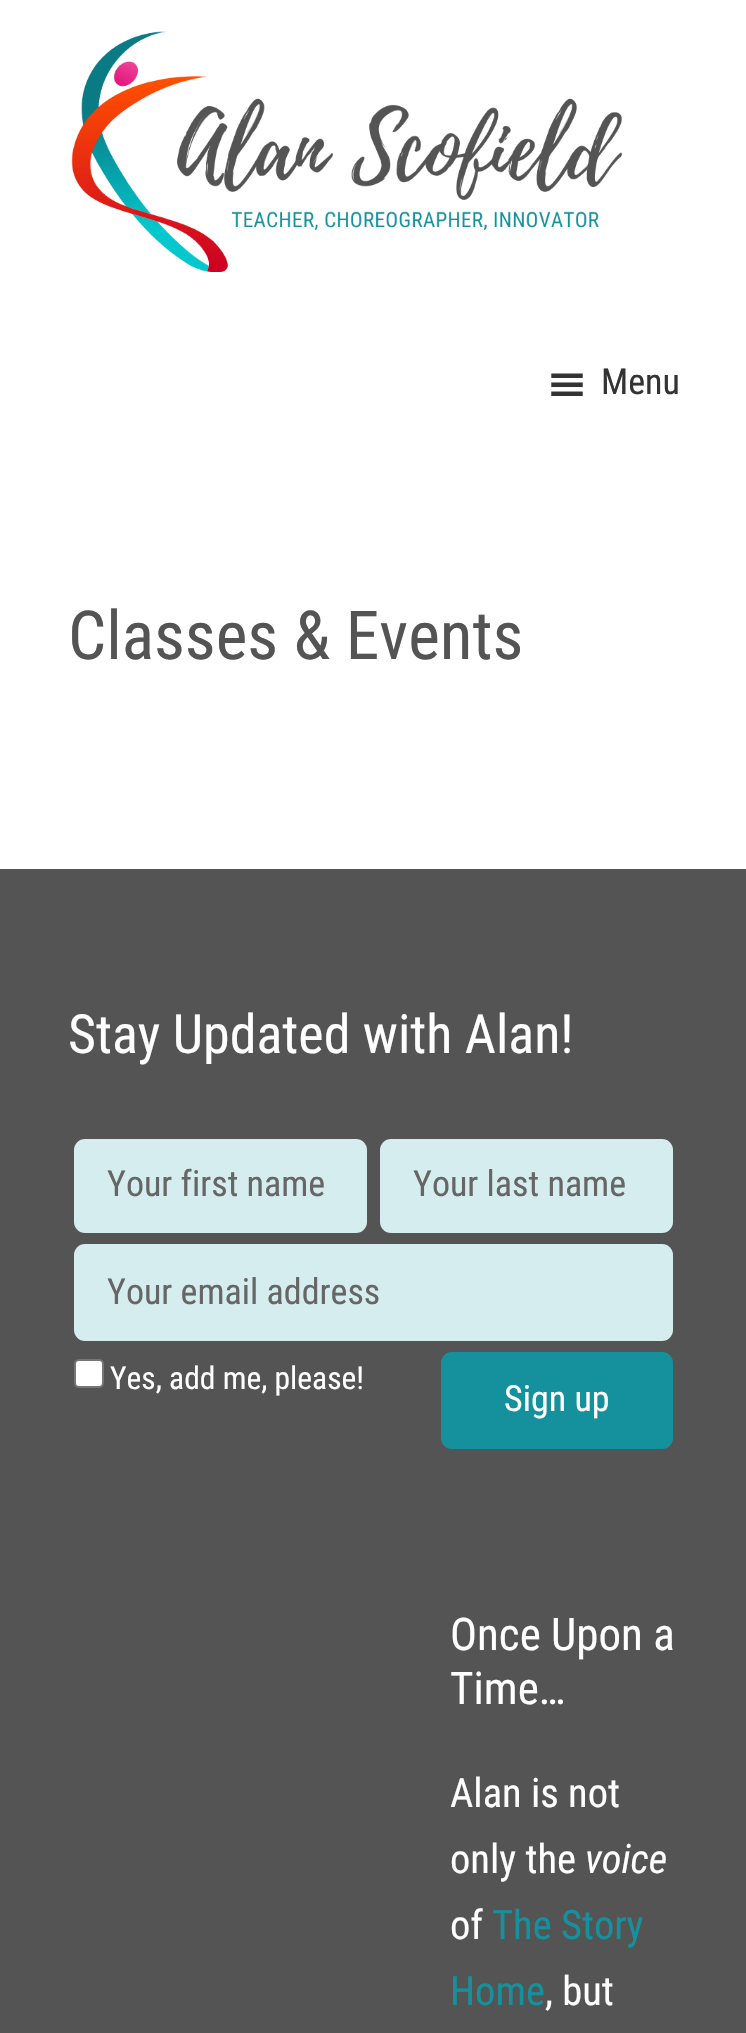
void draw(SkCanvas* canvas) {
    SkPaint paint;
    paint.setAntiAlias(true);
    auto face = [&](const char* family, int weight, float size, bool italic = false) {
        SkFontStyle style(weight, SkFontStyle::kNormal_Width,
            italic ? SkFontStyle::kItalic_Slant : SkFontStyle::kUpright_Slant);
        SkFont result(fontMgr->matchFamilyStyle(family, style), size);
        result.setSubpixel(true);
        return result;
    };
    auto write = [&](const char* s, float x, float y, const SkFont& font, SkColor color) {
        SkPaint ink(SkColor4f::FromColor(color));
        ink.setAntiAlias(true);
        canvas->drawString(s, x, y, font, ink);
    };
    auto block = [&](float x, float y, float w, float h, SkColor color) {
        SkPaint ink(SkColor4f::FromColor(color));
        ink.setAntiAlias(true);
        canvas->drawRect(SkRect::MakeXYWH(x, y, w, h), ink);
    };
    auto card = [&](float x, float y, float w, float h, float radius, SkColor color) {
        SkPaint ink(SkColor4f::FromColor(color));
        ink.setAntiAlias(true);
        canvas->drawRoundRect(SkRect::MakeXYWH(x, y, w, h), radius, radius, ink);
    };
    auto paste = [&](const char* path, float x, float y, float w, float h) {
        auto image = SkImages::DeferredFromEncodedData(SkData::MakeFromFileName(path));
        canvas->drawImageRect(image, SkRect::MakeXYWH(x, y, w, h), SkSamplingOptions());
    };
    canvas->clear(SK_ColorWHITE);
    paste("pic1.png", 71, 31, 552, 241);
    paste("pic2.png", 551, 373, 32, 23);
    auto kFont1 = face("Roboto Condensed", 400, 36);
    write("Menu", 601, 394, kFont1, SkColorSetRGB(51, 51, 51));
    auto kFont2 = face("Roboto Condensed", 400, 67.5f);
    write("Classes & Events", 68, 659, kFont2, SkColorSetRGB(84, 84, 84));
    block(0, 869, 746, 1164, SkColorSetRGB(84, 84, 84));
    auto kFont3 = face("Roboto Condensed", 400, 54);
    write("Stay Updated with Alan!", 68, 1053, kFont3, SkColorSetRGB(254, 254, 254));
    card(74, 1139, 293, 94, 11, SkColorSetRGB(213, 237, 239));
    write("Your first name", 107, 1196, kFont1, SkColorSetRGB(102, 102, 102));
    card(380, 1139, 293, 94, 11, SkColorSetRGB(213, 237, 239));
    write("Your last name", 413, 1196, kFont1, SkColorSetRGB(102, 102, 102));
    card(74, 1244, 599, 97, 11, SkColorSetRGB(213, 237, 239));
    write("Your email address", 107, 1304, kFont1, SkColorSetRGB(102, 102, 102));
    paint.setColor(SK_ColorWHITE);
    canvas->drawRoundRect(SkRect::MakeXYWH(75, 1360, 28, 27), 4, 4, paint);
    paint.setStyle(SkPaint::kStroke_Style);
    paint.setStrokeWidth(2);
    paint.setColor(SkColorSetRGB(118, 118, 118));
    canvas->drawRoundRect(SkRect::MakeXYWH(75, 1360, 28, 27), 4, 4, paint);
    auto kFont4 = face("Roboto Condensed", 400, 31.5f);
    write("Yes, add me, please!", 110, 1389, kFont4, SkColorSetRGB(254, 254, 254));
    card(441, 1352, 232, 97, 11, SkColorSetRGB(21, 145, 157));
    write("Sign up", 504, 1411, kFont1, SkColorSetRGB(254, 254, 254));
    auto kFont5 = face("Roboto Condensed", 400, 45);
    write("Once Upon a", 450, 1650, kFont5, SkColorSetRGB(254, 254, 254));
    write("Time…", 450, 1704, kFont5, SkColorSetRGB(254, 254, 254));
    auto kFont6 = face("Roboto Condensed", 400, 40.5f);
    write("Alan is not", 450, 1807, kFont6, SkColorSetRGB(254, 254, 254));
    write("only the", 450, 1873, kFont6, SkColorSetRGB(254, 254, 254));
    auto kFont7 = face("Roboto Condensed", 400, 40.5f, true);
    write("voice", 585, 1873, kFont7, SkColorSetRGB(254, 254, 254));
    write("of", 450, 1939, kFont6, SkColorSetRGB(254, 254, 254));
    write("The Story", 492, 1939, kFont6, SkColorSetRGB(21, 145, 157));
    write("Home", 450, 2005, kFont6, SkColorSetRGB(21, 145, 157));
    write(", but", 545, 2005, kFont6, SkColorSetRGB(254, 254, 254));
}
